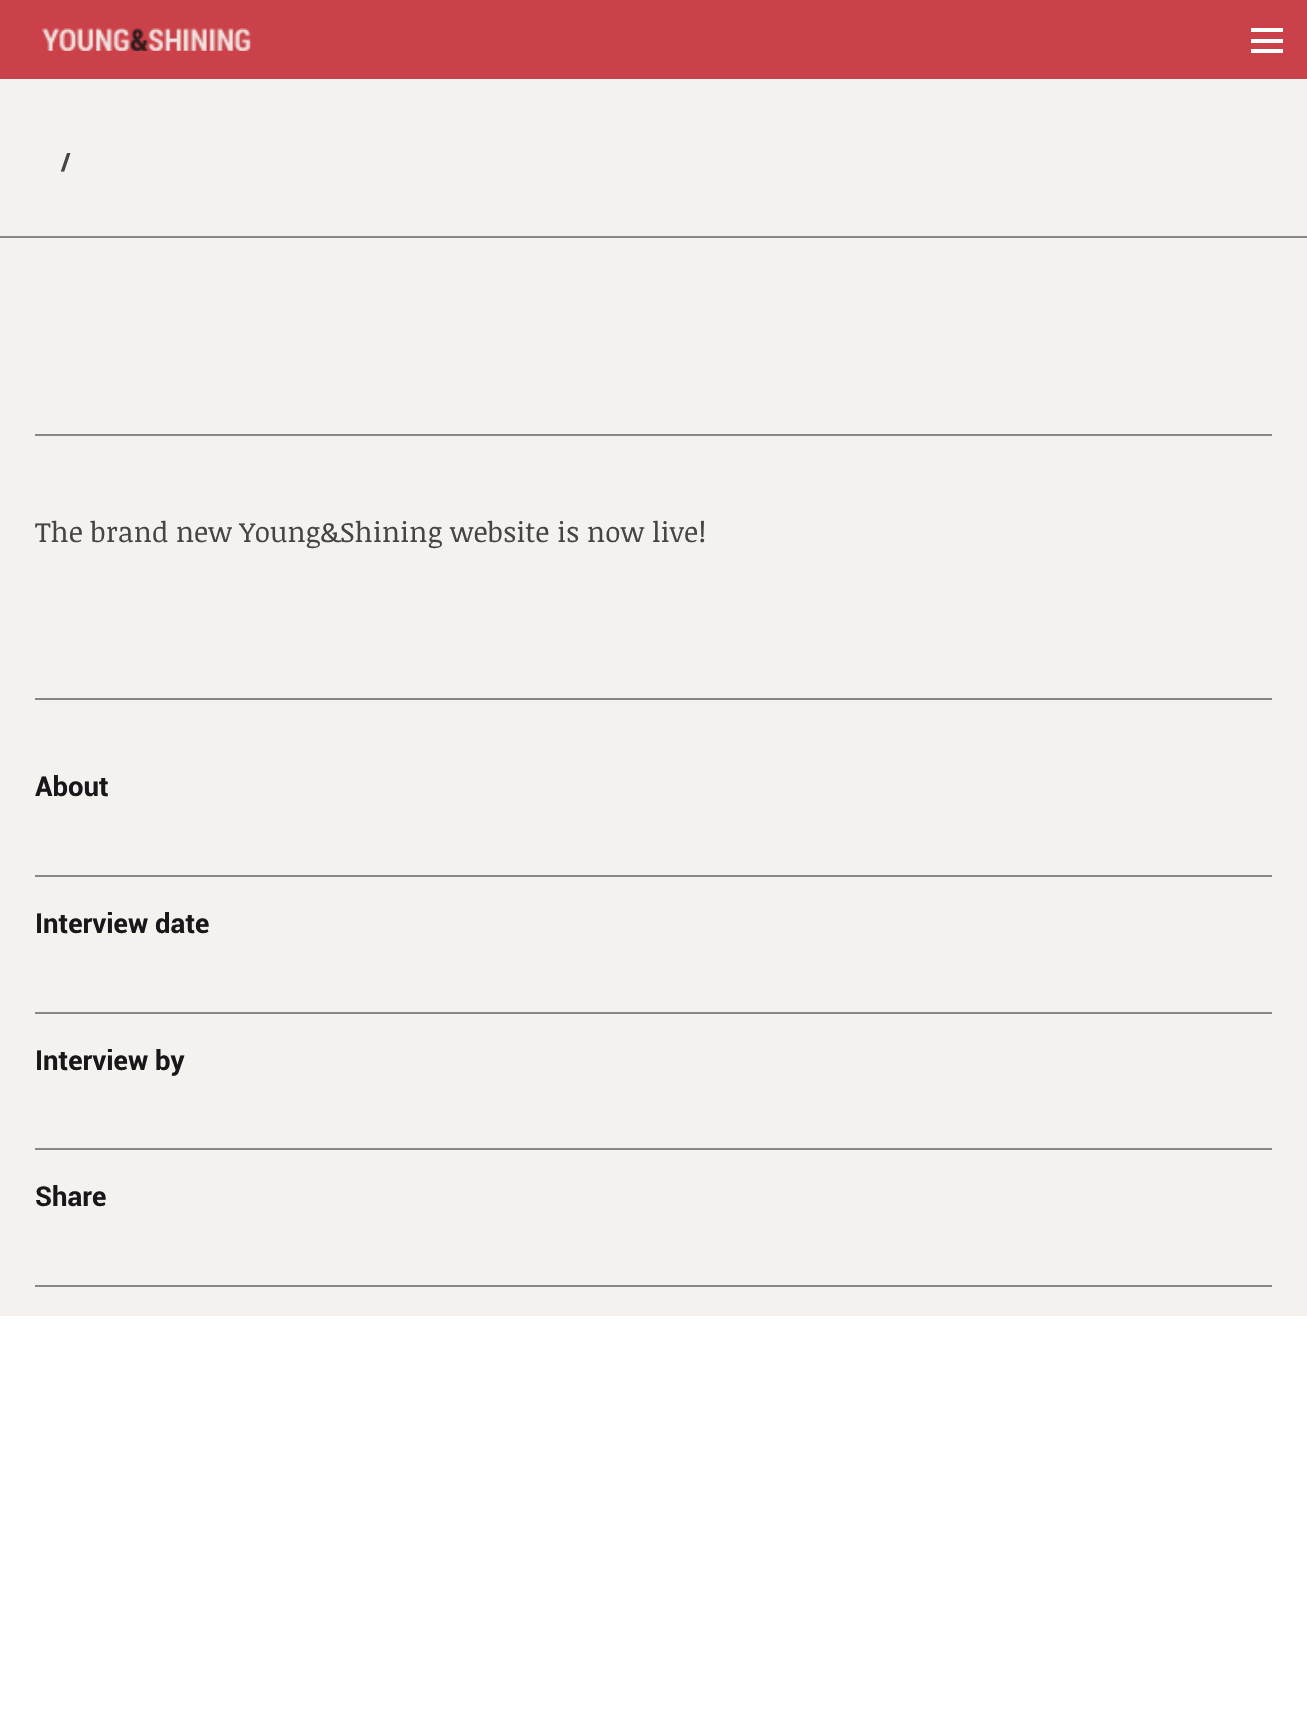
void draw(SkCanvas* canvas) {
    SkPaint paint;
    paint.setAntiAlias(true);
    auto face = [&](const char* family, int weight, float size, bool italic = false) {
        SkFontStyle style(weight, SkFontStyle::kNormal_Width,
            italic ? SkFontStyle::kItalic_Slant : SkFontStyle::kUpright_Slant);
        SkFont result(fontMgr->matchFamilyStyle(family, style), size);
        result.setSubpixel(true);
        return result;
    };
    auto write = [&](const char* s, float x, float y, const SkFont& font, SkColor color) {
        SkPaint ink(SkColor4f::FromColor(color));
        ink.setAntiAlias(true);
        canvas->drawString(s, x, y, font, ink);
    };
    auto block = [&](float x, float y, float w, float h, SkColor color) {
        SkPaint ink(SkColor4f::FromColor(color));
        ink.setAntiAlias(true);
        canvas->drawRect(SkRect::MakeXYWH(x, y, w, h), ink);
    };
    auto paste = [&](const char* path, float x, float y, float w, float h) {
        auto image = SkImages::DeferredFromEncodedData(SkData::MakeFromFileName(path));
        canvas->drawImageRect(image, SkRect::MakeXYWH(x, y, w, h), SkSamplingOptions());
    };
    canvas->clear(SK_ColorWHITE);
    block(0, 79, 1307, 1237, SkColorSetRGB(245, 241, 238));
    block(0, 0, 1307, 79, SkColorSetRGB(202, 65, 73));
    paste("pic1.png", 42, 28, 209, 23);
    block(1251, 49, 32, 4, SK_ColorWHITE);
    block(1251, 39, 32, 4, SK_ColorWHITE);
    block(1251, 28, 32, 4, SK_ColorWHITE);
    block(0, 236, 1307, 2, SkColorSetRGB(135, 135, 135));
    auto kFont1 = face("Roboto", 700, 24);
    write("/", 61, 170, kFont1, SkColorSetRGB(69, 69, 69));
    block(35, 434, 1237, 2, SkColorSetRGB(135, 135, 135));
    block(35, 698, 1237, 2, SkColorSetRGB(136, 132, 133));
    auto kFont2 = face("Noticia Text", 400, 28);
    write("The brand new Young&Shining website is now live!", 35, 542, kFont2, SkColorSetRGB(69, 69, 69));
    block(35, 875, 1237, 2, SkColorSetRGB(135, 135, 135));
    auto kFont3 = face("Roboto", 700, 27.5f);
    write("About", 35, 796, kFont3, SkColorSetRGB(25, 23, 26));
    block(35, 1012, 1237, 2, SkColorSetRGB(135, 135, 135));
    write("Interview date", 35, 933, kFont3, SkColorSetRGB(25, 23, 26));
    block(35, 1148, 1237, 2, SkColorSetRGB(135, 135, 135));
    write("Interview by", 35, 1070, kFont3, SkColorSetRGB(25, 23, 26));
    block(35, 1285, 1237, 2, SkColorSetRGB(135, 135, 135));
    write("Share", 35, 1206, kFont3, SkColorSetRGB(25, 23, 26));
}
